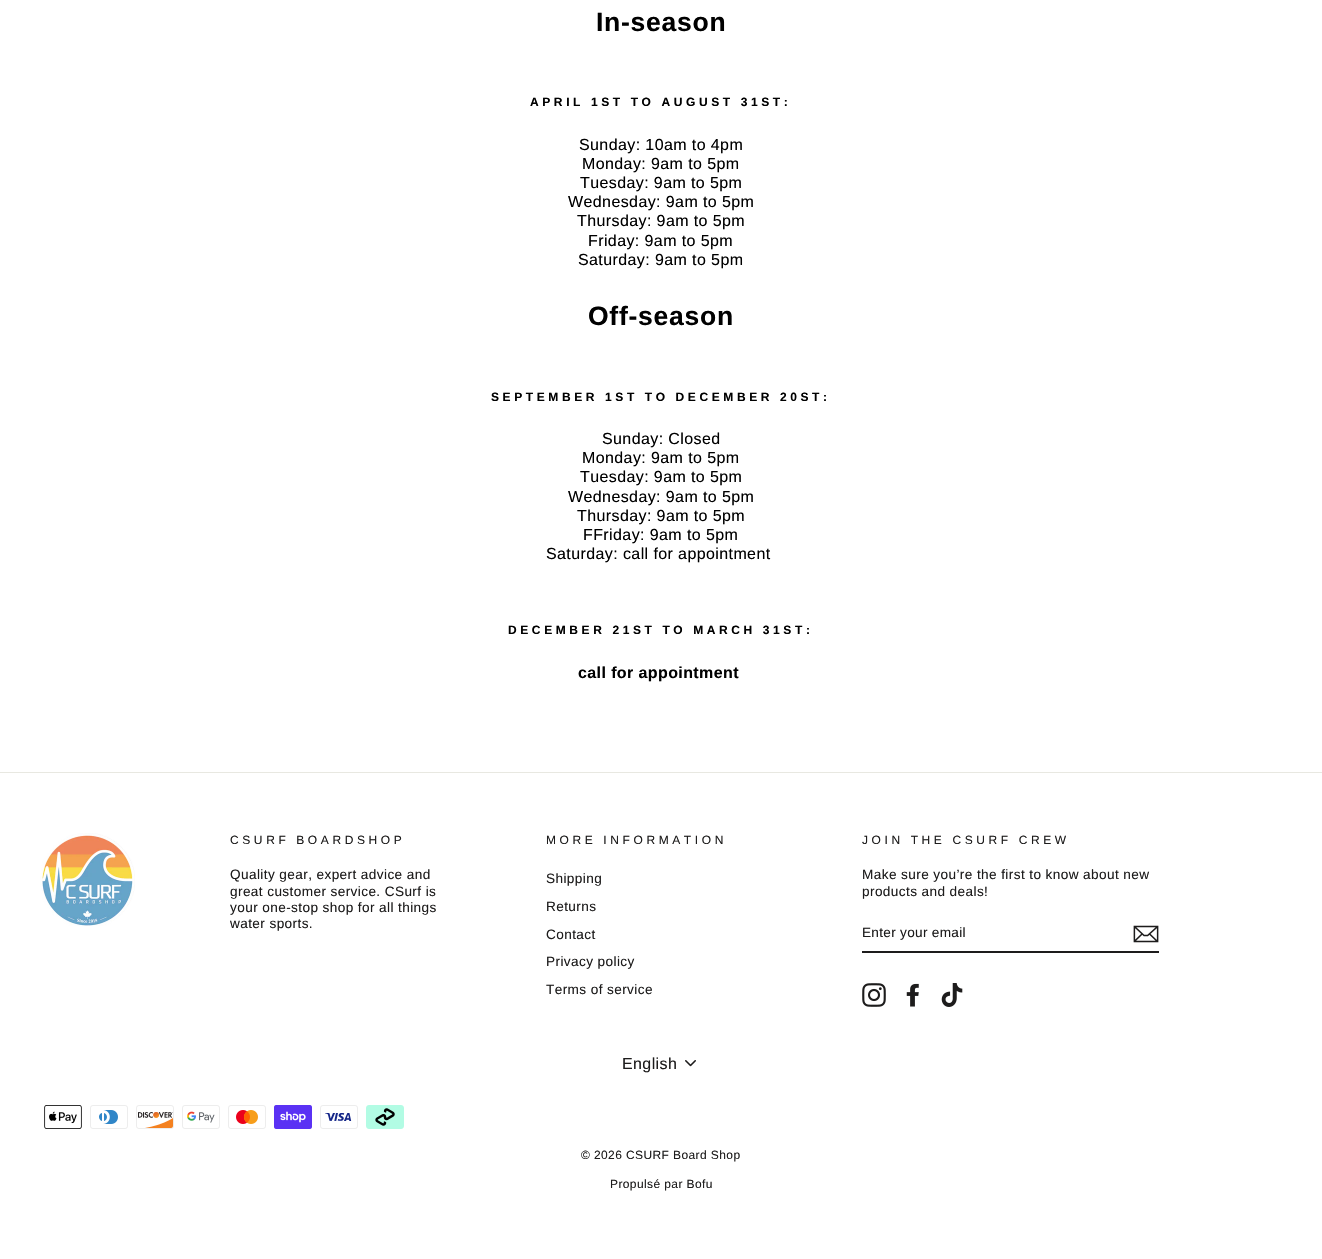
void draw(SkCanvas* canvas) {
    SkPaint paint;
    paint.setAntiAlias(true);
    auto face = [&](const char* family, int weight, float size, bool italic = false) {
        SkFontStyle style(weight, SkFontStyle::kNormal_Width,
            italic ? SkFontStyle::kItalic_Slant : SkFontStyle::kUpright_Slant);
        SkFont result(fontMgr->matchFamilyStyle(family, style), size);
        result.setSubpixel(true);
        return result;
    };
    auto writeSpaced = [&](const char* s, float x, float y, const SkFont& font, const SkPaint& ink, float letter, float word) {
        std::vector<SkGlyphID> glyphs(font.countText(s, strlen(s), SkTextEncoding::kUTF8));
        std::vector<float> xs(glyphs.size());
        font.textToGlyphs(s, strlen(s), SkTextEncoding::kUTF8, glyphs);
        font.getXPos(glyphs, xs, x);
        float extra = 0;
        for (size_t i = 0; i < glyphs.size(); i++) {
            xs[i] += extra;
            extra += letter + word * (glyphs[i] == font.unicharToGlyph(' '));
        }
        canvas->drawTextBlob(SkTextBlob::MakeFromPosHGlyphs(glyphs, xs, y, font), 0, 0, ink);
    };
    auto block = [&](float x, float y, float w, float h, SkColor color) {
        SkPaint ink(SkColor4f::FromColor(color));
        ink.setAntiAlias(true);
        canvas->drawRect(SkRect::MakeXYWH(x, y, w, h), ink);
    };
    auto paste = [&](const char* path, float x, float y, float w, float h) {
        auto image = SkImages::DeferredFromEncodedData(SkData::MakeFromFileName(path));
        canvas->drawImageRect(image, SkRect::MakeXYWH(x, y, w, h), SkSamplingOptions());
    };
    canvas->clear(SK_ColorWHITE);
    auto kFont1 = face("Arimo", 700, 26.5f);
    paint.setColor(SK_ColorBLACK);
    writeSpaced("In-season", 596, 31, kFont1, paint, 0.75f, 0);
    auto kFont2 = face("Arimo", 700, 12);
    writeSpaced("APRIL 1ST TO AUGUST 31ST:", 530, 106, kFont2, paint, 3.6f, 0);
    auto kFont3 = face("Arimo", 400, 16);
    writeSpaced("Sunday: 10am to 4pm", 579, 150, kFont3, paint, 0.4f, 0);
    writeSpaced("Monday: 9am to 5pm", 582, 169, kFont3, paint, 0.4f, 0);
    writeSpaced("Tuesday: 9am to 5pm", 580, 188, kFont3, paint, 0.4f, 0);
    writeSpaced("Wednesday: 9am to 5pm", 568, 207, kFont3, paint, 0.4f, 0);
    writeSpaced("Thursday: 9am to 5pm", 577, 226, kFont3, paint, 0.4f, 0);
    writeSpaced("Friday: 9am to 5pm", 588, 246, kFont3, paint, 0.4f, 0);
    writeSpaced("Saturday: 9am to 5pm", 578, 265, kFont3, paint, 0.4f, 0);
    writeSpaced("Off-season", 588, 325, kFont1, paint, 0.75f, 0);
    writeSpaced("SEPTEMBER 1ST TO DECEMBER 20ST:", 491, 401, kFont2, paint, 3.6f, 0);
    writeSpaced("Sunday: Closed", 602, 444, kFont3, paint, 0.4f, 0);
    writeSpaced("Monday: 9am to 5pm", 582, 463, kFont3, paint, 0.4f, 0);
    writeSpaced("Tuesday: 9am to 5pm", 580, 482, kFont3, paint, 0.4f, 0);
    writeSpaced("Wednesday: 9am to 5pm", 568, 502, kFont3, paint, 0.4f, 0);
    writeSpaced("Thursday: 9am to 5pm", 577, 521, kFont3, paint, 0.4f, 0);
    writeSpaced("FFriday: 9am to 5pm", 583, 540, kFont3, paint, 0.4f, 0);
    writeSpaced("Saturday: call for appointment", 546, 559, kFont3, paint, 0.4f, 0);
    writeSpaced("DECEMBER 21ST TO MARCH 31ST:", 508, 634, kFont2, paint, 3.6f, 0);
    auto kFont4 = face("Arimo", 700, 16);
    writeSpaced("call for appointment", 578, 678, kFont4, paint, 0.4f, 0);
    block(0, 772, 1322, 1, SkColorSetRGB(232, 232, 225));
    paste("pic1.png", 40, 833, 95, 93);
    auto kFont5 = face("Arimo", 400, 12);
    paint.setColor(SkColorSetRGB(29, 28, 28));
    writeSpaced("CSURF BOARDSHOP", 230, 844, kFont5, paint, 3.6f, 0);
    auto kFont6 = face("Arimo", 400, 13.6f);
    writeSpaced("Quality gear, expert advice and", 230, 879, kFont6, paint, 0.4f, 0);
    writeSpaced("great customer service. CSurf is", 230, 896, kFont6, paint, 0.4f, 0);
    writeSpaced("your one-stop shop for all things", 230, 912, kFont6, paint, 0.4f, 0);
    writeSpaced("water sports.", 230, 928, kFont6, paint, 0.4f, 0);
    writeSpaced("MORE INFORMATION", 546, 844, kFont5, paint, 3.6f, 0);
    writeSpaced("Shipping", 546, 883, kFont6, paint, 0.4f, 0);
    writeSpaced("Returns", 546, 911, kFont6, paint, 0.4f, 0);
    writeSpaced("Contact", 546, 939, kFont6, paint, 0.4f, 0);
    writeSpaced("Privacy policy", 546, 966, kFont6, paint, 0.4f, 0);
    writeSpaced("Terms of service", 546, 994, kFont6, paint, 0.4f, 0);
    writeSpaced("JOIN THE CSURF CREW", 862, 844, kFont5, paint, 3.6f, 0);
    writeSpaced("Make sure you’re the first to know about new", 862, 879, kFont6, paint, 0.4f, 0);
    writeSpaced("products and deals!", 862, 896, kFont6, paint, 0.4f, 0);
    block(862, 951, 297, 2, SkColorSetRGB(29, 28, 28));
    writeSpaced("Enter your email", 862, 937, kFont6, paint, 0.3f, 0);
    paste("pic2.png", 1133, 925, 26, 18);
    paste("pic3.png", 862, 983, 24, 24);
    paste("pic4.png", 906, 983, 13, 24);
    paste("pic5.png", 941, 983, 22, 24);
    paste("pic6.png", 685, 1060, 11, 7);
    writeSpaced("English", 622, 1069, kFont3, paint, 0.4f, 0);
    paste("pic7.png", 44, 1105, 38, 24);
    paste("pic8.png", 90, 1105, 38, 24);
    paste("pic9.png", 136, 1105, 38, 24);
    paste("pic10.png", 182, 1105, 38, 24);
    paste("pic11.png", 228, 1105, 38, 24);
    paste("pic12.png", 274, 1105, 38, 24);
    paste("pic13.png", 320, 1105, 38, 24);
    paste("pic14.png", 366, 1105, 38, 24);
    writeSpaced("© 2026 CSURF Board Shop", 581, 1159, kFont5, paint, 0.4f, 0);
    writeSpaced("Propulsé par Bofu", 610, 1188, kFont5, paint, 0.4f, 0);
}
